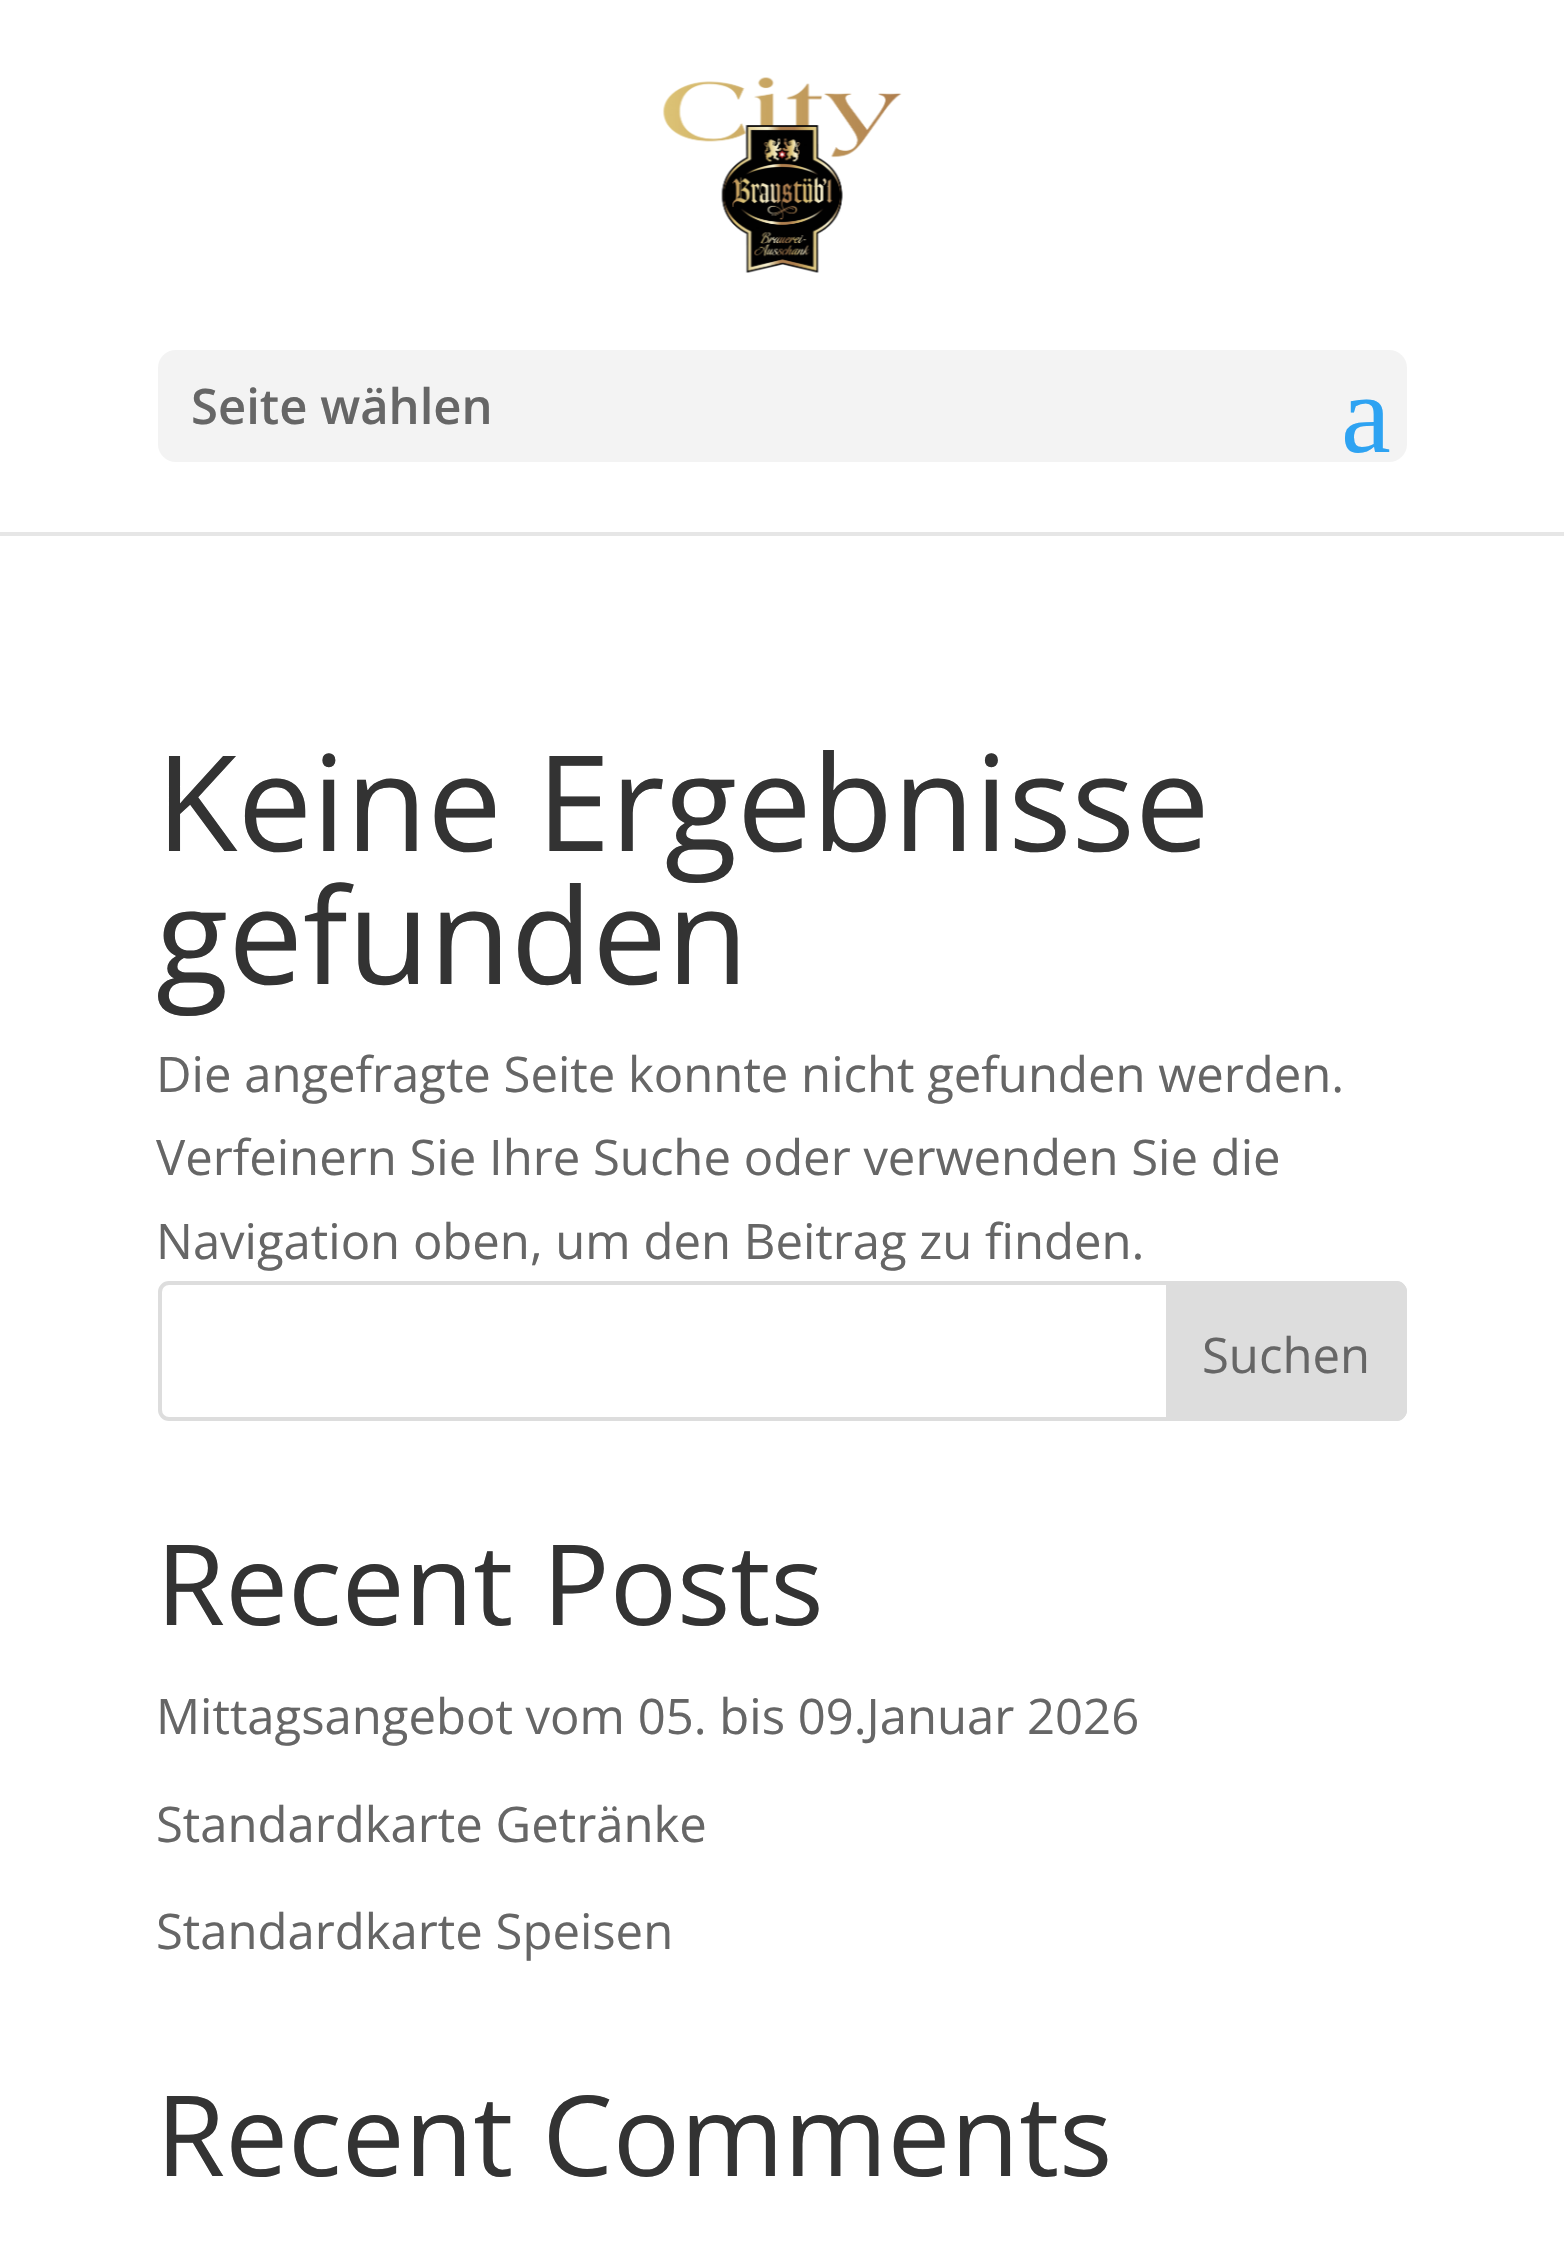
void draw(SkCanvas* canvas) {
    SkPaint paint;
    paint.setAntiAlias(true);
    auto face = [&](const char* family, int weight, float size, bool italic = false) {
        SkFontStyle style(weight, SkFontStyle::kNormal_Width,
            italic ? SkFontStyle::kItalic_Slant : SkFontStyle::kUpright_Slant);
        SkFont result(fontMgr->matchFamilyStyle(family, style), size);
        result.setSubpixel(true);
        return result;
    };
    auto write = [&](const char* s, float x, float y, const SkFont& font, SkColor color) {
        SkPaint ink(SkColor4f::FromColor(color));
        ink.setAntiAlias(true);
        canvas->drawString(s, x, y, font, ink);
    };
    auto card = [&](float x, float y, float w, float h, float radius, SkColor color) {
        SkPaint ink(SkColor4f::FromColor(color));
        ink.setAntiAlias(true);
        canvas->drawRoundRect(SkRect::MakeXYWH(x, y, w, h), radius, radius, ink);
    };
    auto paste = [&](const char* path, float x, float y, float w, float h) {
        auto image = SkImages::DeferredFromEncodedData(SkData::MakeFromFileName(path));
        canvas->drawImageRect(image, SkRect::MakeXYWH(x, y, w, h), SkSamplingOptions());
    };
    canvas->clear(SK_ColorWHITE);
    paint.setColor(SkColorSetRGB(230, 230, 230));
    canvas->drawPath(SkPathBuilder().moveTo(0, 532).lineTo(0, 536).lineTo(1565, 536).lineTo(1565, 4).lineTo(1564, 4).lineTo(1564, 532).close().detach(), paint);
    paste("pic1.png", 662, 77, 240, 196);
    card(158, 350, 1249, 112, 18, SkColorSetRGB(243, 243, 243));
    auto kFont1 = face("Open Sans", 600, 49);
    write("Seite wählen", 191, 424, kFont1, SkColorSetRGB(102, 102, 102));
    auto kFont2 = face("Liberation Serif", 400, 112);
    write("a", 1341, 452, kFont2, SkColorSetRGB(46, 163, 242));
    auto kFont3 = face("Open Sans", 400, 133);
    write("Keine Ergebnisse", 156, 851, kFont3, SkColorSetRGB(51, 51, 51));
    write("gefunden", 156, 984, kFont3, SkColorSetRGB(51, 51, 51));
    auto kFont4 = face("Open Sans", 400, 49);
    write("Die angefragte Seite konnte nicht gefunden werden.", 156, 1092, kFont4, SkColorSetRGB(102, 102, 102));
    write("Verfeinern Sie Ihre Suche oder verwenden Sie die", 156, 1175, kFont4, SkColorSetRGB(102, 102, 102));
    write("Navigation oben, um den Beitrag zu finden.", 156, 1259, kFont4, SkColorSetRGB(102, 102, 102));
    paint.setStyle(SkPaint::kStroke_Style);
    paint.setStrokeWidth(4);
    paint.setColor(SkColorSetRGB(221, 221, 221));
    canvas->drawRoundRect(SkRect::MakeXYWH(160, 1283, 1245, 136), 9, 9, paint);
    paint.setStyle(SkPaint::kFill_Style);
    canvas->drawPath(SkPathBuilder().moveTo(1168, 1283).lineTo(1396, 1283).cubicTo(1401, 1283, 1405, 1287, 1405, 1292).lineTo(1405, 1410).cubicTo(1405, 1415, 1401, 1419, 1396, 1419).lineTo(1168, 1419).close().detach(), paint);
    paint.setStyle(SkPaint::kStroke_Style);
    canvas->drawPath(SkPathBuilder().moveTo(1168, 1283).lineTo(1396, 1283).cubicTo(1401, 1283, 1405, 1287, 1405, 1292).lineTo(1405, 1410).cubicTo(1405, 1415, 1401, 1419, 1396, 1419).lineTo(1168, 1419).close().detach(), paint);
    write("Suchen", 1202, 1373, kFont4, SkColorSetRGB(102, 102, 102));
    auto kFont5 = face("Open Sans", 400, 112);
    write("Recent Posts", 156, 1625, kFont5, SkColorSetRGB(51, 51, 51));
    write("Mittagsangebot vom 05. bis 09.Januar 2026", 156, 1734, kFont4, SkColorSetRGB(102, 102, 102));
    write("Standardkarte Getränke", 156, 1842, kFont4, SkColorSetRGB(102, 102, 102));
    write("Standardkarte Speisen", 156, 1949, kFont4, SkColorSetRGB(102, 102, 102));
    write("Recent Comments", 156, 2176, kFont5, SkColorSetRGB(51, 51, 51));
}
